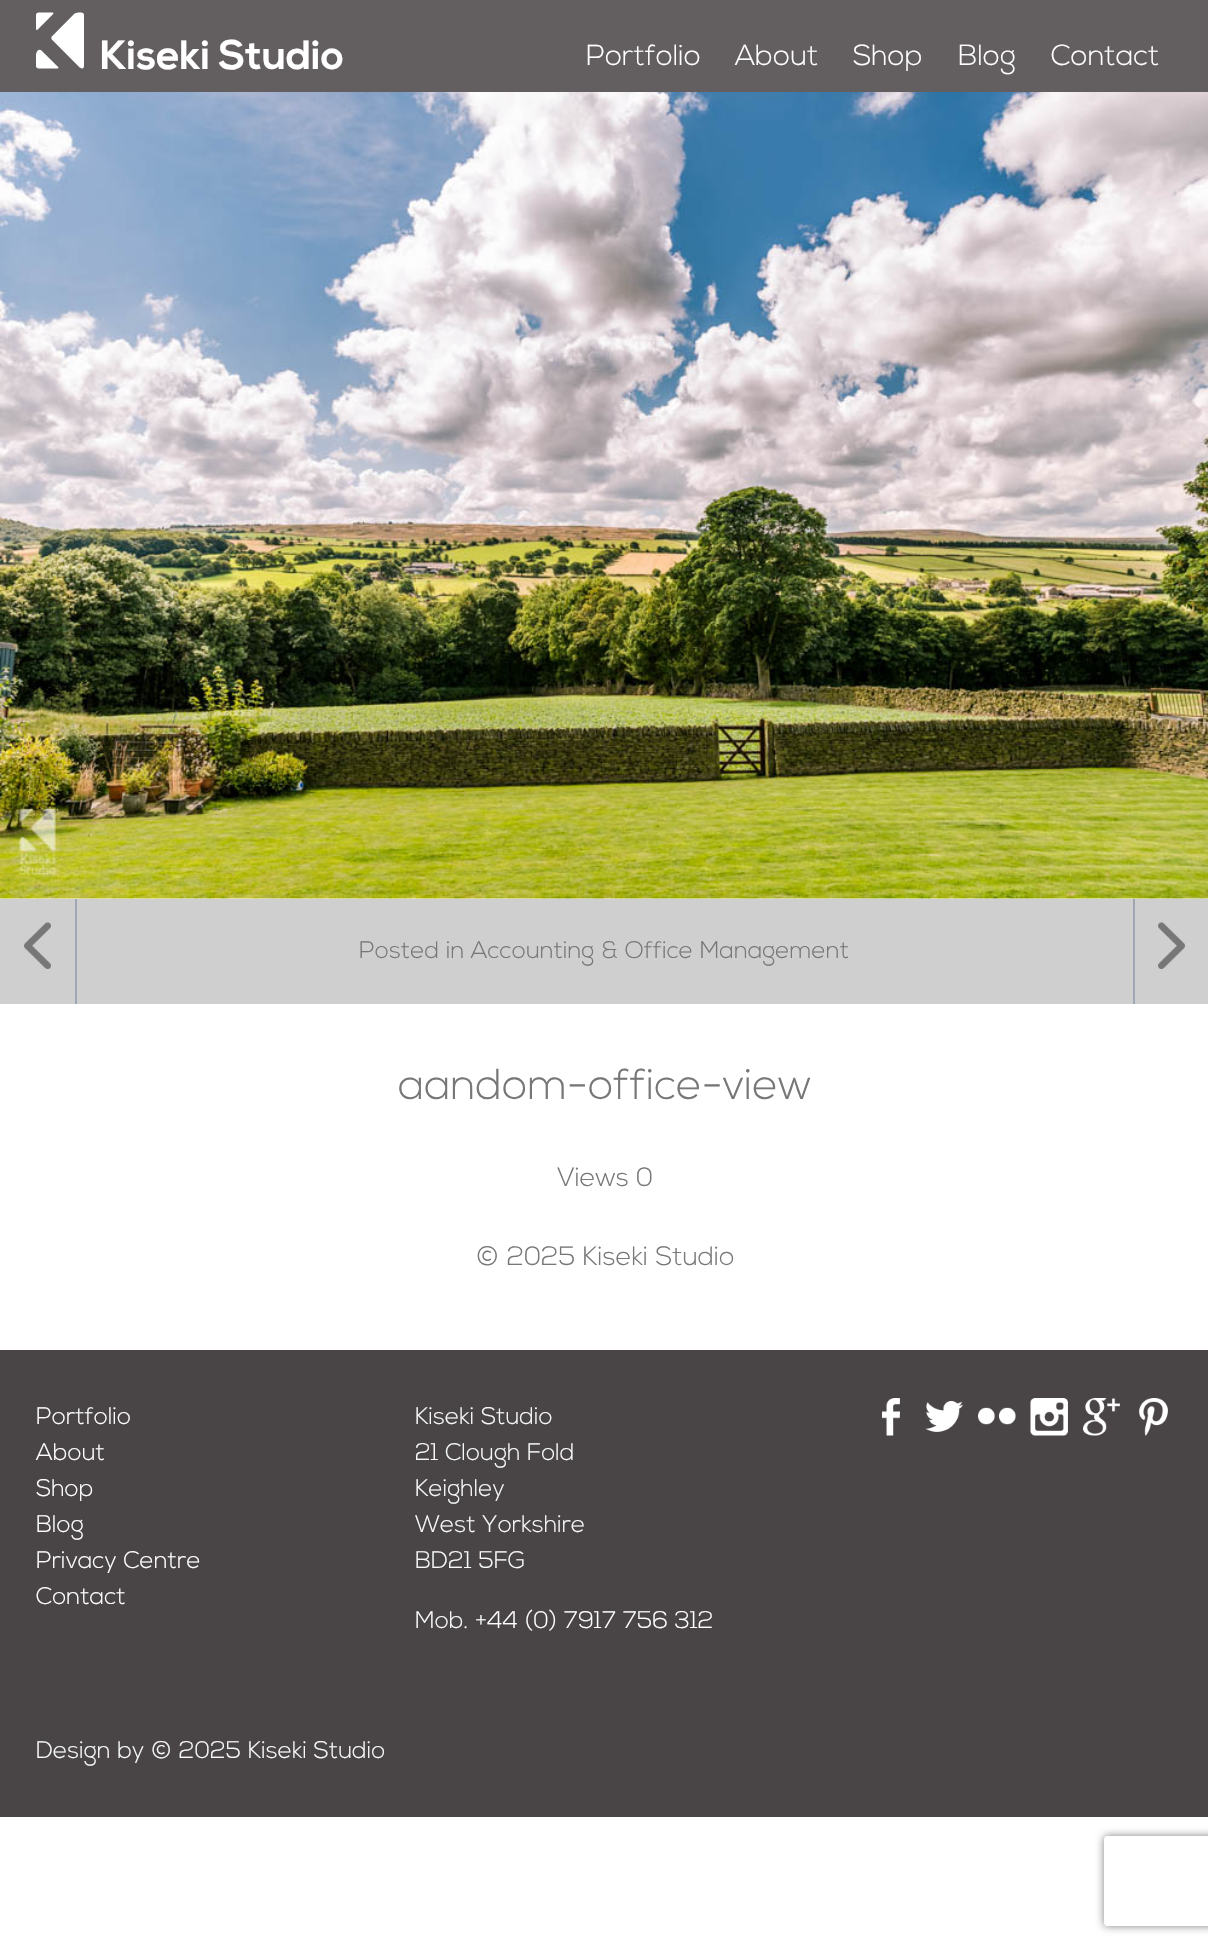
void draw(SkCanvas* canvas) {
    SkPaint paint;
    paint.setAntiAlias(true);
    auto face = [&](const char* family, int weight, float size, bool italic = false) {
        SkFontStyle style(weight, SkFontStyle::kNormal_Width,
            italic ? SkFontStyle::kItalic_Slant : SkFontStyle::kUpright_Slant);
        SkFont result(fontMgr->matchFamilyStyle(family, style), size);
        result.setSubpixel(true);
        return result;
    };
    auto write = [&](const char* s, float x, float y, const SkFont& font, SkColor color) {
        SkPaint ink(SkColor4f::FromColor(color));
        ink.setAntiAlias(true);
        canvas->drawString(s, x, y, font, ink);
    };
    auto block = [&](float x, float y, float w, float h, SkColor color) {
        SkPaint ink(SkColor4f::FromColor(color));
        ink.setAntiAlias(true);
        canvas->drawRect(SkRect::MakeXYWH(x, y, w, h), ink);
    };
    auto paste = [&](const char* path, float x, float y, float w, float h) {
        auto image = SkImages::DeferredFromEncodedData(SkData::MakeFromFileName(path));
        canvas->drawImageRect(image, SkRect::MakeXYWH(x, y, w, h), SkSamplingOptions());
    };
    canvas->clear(SK_ColorWHITE);
    block(0, 0, 1208, 92, SkColorSetRGB(99, 94, 95));
    paste("pic1.png", 36, 12, 48, 57);
    auto kFont1 = face("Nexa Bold", 700, 40.75f);
    write("Kiseki Studio", 100, 69, kFont1, SK_ColorWHITE);
    auto kFont2 = face("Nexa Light", 300, 29);
    write("Portfolio", 586, 65, kFont2, SK_ColorWHITE);
    write("About", 735, 65, kFont2, SK_ColorWHITE);
    write("Shop", 853, 65, kFont2, SK_ColorWHITE);
    write("Blog", 958, 65, kFont2, SK_ColorWHITE);
    write("Contact", 1051, 65, kFont2, SK_ColorWHITE);
    paste("pic2.png", 0, 92, 1208, 807);
    block(0, 899, 1208, 105, SkColorSetRGB(207, 207, 207));
    block(75, 899, 2, 105, SkColorSetRGB(159, 166, 180));
    paste("pic3.png", 24, 922, 27, 47);
    auto kFont3 = face("Nexa Light", 300, 24);
    write("Posted in Accounting & Office Management", 359, 958, kFont3, SkColorSetRGB(119, 119, 119));
    block(1133, 899, 2, 105, SkColorSetRGB(159, 166, 180));
    paste("pic4.png", 1158, 922, 27, 47);
    auto kFont4 = face("Nexa Light", 300, 43.25f);
    write("aandom-office-view", 398, 1099, kFont4, SkColorSetRGB(119, 119, 119));
    auto kFont5 = face("Nexa Light", 300, 26.5f);
    write("Views 0", 557, 1186, kFont5, SkColorSetRGB(119, 119, 119));
    write("© 2025 Kiseki Studio", 476, 1265, kFont5, SkColorSetRGB(119, 119, 119));
    block(0, 1350, 1208, 467, SkColorSetRGB(73, 69, 70));
    write("Portfolio", 36, 1424, kFont3, SK_ColorWHITE);
    write("About", 36, 1460, kFont3, SK_ColorWHITE);
    write("Shop", 36, 1496, kFont3, SK_ColorWHITE);
    write("Blog", 36, 1532, kFont3, SK_ColorWHITE);
    write("Privacy Centre", 36, 1568, kFont3, SK_ColorWHITE);
    write("Contact", 36, 1604, kFont3, SK_ColorWHITE);
    write("Kiseki Studio", 415, 1424, kFont3, SkColorSetRGB(248, 249, 250));
    write("21 Clough Fold", 415, 1460, kFont3, SkColorSetRGB(248, 249, 250));
    write("Keighley", 415, 1496, kFont3, SkColorSetRGB(248, 249, 250));
    write("West Yorkshire", 415, 1532, kFont3, SkColorSetRGB(248, 249, 250));
    write("BD21 5FG", 415, 1568, kFont3, SkColorSetRGB(248, 249, 250));
    write("Mob.", 415, 1628, kFont3, SkColorSetRGB(248, 249, 250));
    write("+44 (0) 7917 756 312", 475, 1628, kFont3, SK_ColorWHITE);
    paste("pic5.png", 882, 1398, 18, 38);
    paste("pic6.png", 925, 1401, 38, 31);
    paste("pic7.png", 978, 1407, 38, 18);
    paste("pic8.png", 1030, 1398, 38, 38);
    paste("pic9.png", 1083, 1398, 37, 38);
    paste("pic10.png", 1139, 1398, 29, 38);
    write("Design by © 2025 Kiseki Studio", 36, 1758, kFont3, SkColorSetRGB(248, 249, 250));
    canvas->save();
    canvas->clipPath(SkPathBuilder(SkPathFillType::kEvenOdd).moveTo(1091, 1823).lineTo(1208, 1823).lineTo(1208, 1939).lineTo(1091, 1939).close().moveTo(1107, 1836).lineTo(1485, 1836).cubicTo(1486.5f, 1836, 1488, 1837.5f, 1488, 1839).lineTo(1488, 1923).cubicTo(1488, 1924.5f, 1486.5f, 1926, 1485, 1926).lineTo(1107, 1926).cubicTo(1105.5f, 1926, 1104, 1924.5f, 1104, 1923).lineTo(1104, 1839).cubicTo(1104, 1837.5f, 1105.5f, 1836, 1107, 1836).close().detach(), true);
    paint.setColor(SkColorSetRGB(128, 128, 128));
    paint.setMaskFilter(SkMaskFilter::MakeBlur(kNormal_SkBlurStyle, 4));
    canvas->drawRoundRect(SkRect::MakeXYWH(1104, 1836, 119, 90), 3, 3, paint);
    paint.setMaskFilter(nullptr);
    canvas->restore();
}
